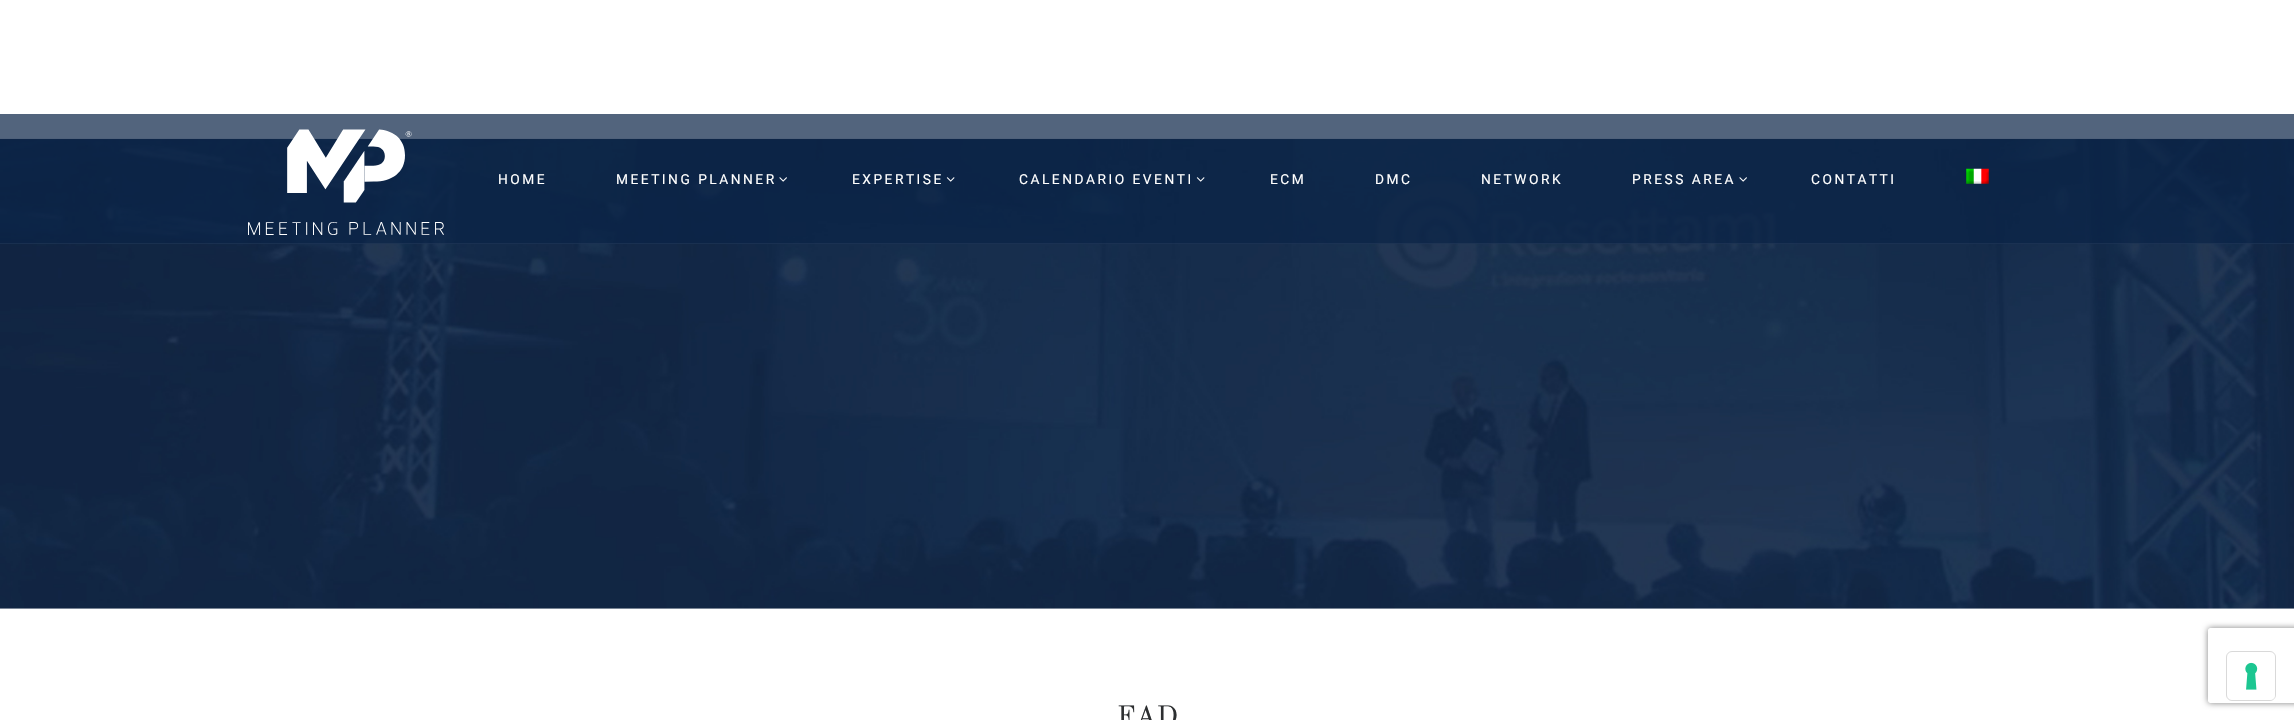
void draw(SkCanvas* canvas) {
    SkPaint paint;
    paint.setAntiAlias(true);
    auto face = [&](const char* family, int weight, float size, bool italic = false) {
        SkFontStyle style(weight, SkFontStyle::kNormal_Width,
            italic ? SkFontStyle::kItalic_Slant : SkFontStyle::kUpright_Slant);
        SkFont result(fontMgr->matchFamilyStyle(family, style), size);
        result.setSubpixel(true);
        return result;
    };
    auto write = [&](const char* s, float x, float y, const SkFont& font, SkColor color) {
        SkPaint ink(SkColor4f::FromColor(color));
        ink.setAntiAlias(true);
        canvas->drawString(s, x, y, font, ink);
    };
    auto writeSpaced = [&](const char* s, float x, float y, const SkFont& font, const SkPaint& ink, float letter, float word) {
        std::vector<SkGlyphID> glyphs(font.countText(s, strlen(s), SkTextEncoding::kUTF8));
        std::vector<float> xs(glyphs.size());
        font.textToGlyphs(s, strlen(s), SkTextEncoding::kUTF8, glyphs);
        font.getXPos(glyphs, xs, x);
        float extra = 0;
        for (size_t i = 0; i < glyphs.size(); i++) {
            xs[i] += extra;
            extra += letter + word * (glyphs[i] == font.unicharToGlyph(' '));
        }
        canvas->drawTextBlob(SkTextBlob::MakeFromPosHGlyphs(glyphs, xs, y, font), 0, 0, ink);
    };
    auto block = [&](float x, float y, float w, float h, SkColor color) {
        SkPaint ink(SkColor4f::FromColor(color));
        ink.setAntiAlias(true);
        canvas->drawRect(SkRect::MakeXYWH(x, y, w, h), ink);
    };
    auto card = [&](float x, float y, float w, float h, float radius, SkColor color) {
        SkPaint ink(SkColor4f::FromColor(color));
        ink.setAntiAlias(true);
        canvas->drawRoundRect(SkRect::MakeXYWH(x, y, w, h), radius, radius, ink);
    };
    auto paste = [&](const char* path, float x, float y, float w, float h) {
        auto image = SkImages::DeferredFromEncodedData(SkData::MakeFromFileName(path));
        canvas->drawImageRect(image, SkRect::MakeXYWH(x, y, w, h), SkSamplingOptions());
    };
    canvas->clear(SK_ColorWHITE);
    paste("pic7.png", 0, 138, 2294, 471);
    block(0, 114, 2294, 130, SkColorSetARGB(179, 9, 34, 70));
    block(0, 243, 2294, 1, SkColorSetARGB(13, 255, 255, 255));
    paste("pic1.png", 248, 129, 196, 106);
    auto kFont1 = face("Roboto", 400, 13.75f);
    paint.setColor(SK_ColorWHITE);
    writeSpaced("HOME", 498, 184, kFont1, paint, 2.5f, 0);
    writeSpaced("MEETING PLANNER", 616, 184, kFont1, paint, 2.5f, 0);
    paste("pic2.png", 779, 177, 8, 5);
    writeSpaced("EXPERTISE", 852, 184, kFont1, paint, 2.5f, 0);
    paste("pic3.png", 946, 177, 9, 5);
    writeSpaced("CALENDARIO EVENTI", 1019, 184, kFont1, paint, 2.5f, 0);
    paste("pic4.png", 1196, 177, 9, 5);
    writeSpaced("ECM", 1270, 184, kFont1, paint, 2.5f, 0);
    writeSpaced("DMC", 1375, 184, kFont1, paint, 2.5f, 0);
    writeSpaced("NETWORK", 1481, 184, kFont1, paint, 2.5f, 0);
    writeSpaced("PRESS AREA", 1632, 184, kFont1, paint, 2.5f, 0);
    paste("pic5.png", 1739, 177, 8, 5);
    writeSpaced("CONTATTI", 1811, 184, kFont1, paint, 2.5f, 0);
    paste("pic6.png", 1966, 168, 23, 16);
    auto kFont2 = face("Old Standard TT", 400, 27.5f);
    write("FAD", 1117, 725, kFont2, SkColorSetRGB(45, 47, 49));
    canvas->save();
    canvas->clipPath(SkPathBuilder(SkPathFillType::kEvenOdd).moveTo(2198, 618).lineTo(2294, 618).lineTo(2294, 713).lineTo(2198, 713).close().moveTo(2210.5f, 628).lineTo(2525.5f, 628).cubicTo(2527, 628, 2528, 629, 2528, 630.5f).lineTo(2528, 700.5f).cubicTo(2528, 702, 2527, 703, 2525.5f, 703).lineTo(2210.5f, 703).cubicTo(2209, 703, 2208, 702, 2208, 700.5f).lineTo(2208, 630.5f).cubicTo(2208, 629, 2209, 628, 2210.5f, 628).close().detach(), true);
    paint.setColor(SkColorSetRGB(128, 128, 128));
    paint.setMaskFilter(SkMaskFilter::MakeBlur(kNormal_SkBlurStyle, 3));
    canvas->drawRoundRect(SkRect::MakeXYWH(2208, 628, 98, 75), 2.5f, 2.5f, paint);
    paint.setMaskFilter(nullptr);
    canvas->restore();
    paint.setStyle(SkPaint::kStroke_Style);
    paint.setStrokeWidth(1);
    paint.setColor(SkColorSetRGB(217, 217, 217));
    canvas->drawRoundRect(SkRect::MakeXYWH(2226.5f, 651.5f, 49, 49), 5.5f, 5.5f, paint);
    card(2228, 653, 47, 47, 5, SK_ColorWHITE);
    paste("pic8.png", 2245, 662, 13, 28);
}
